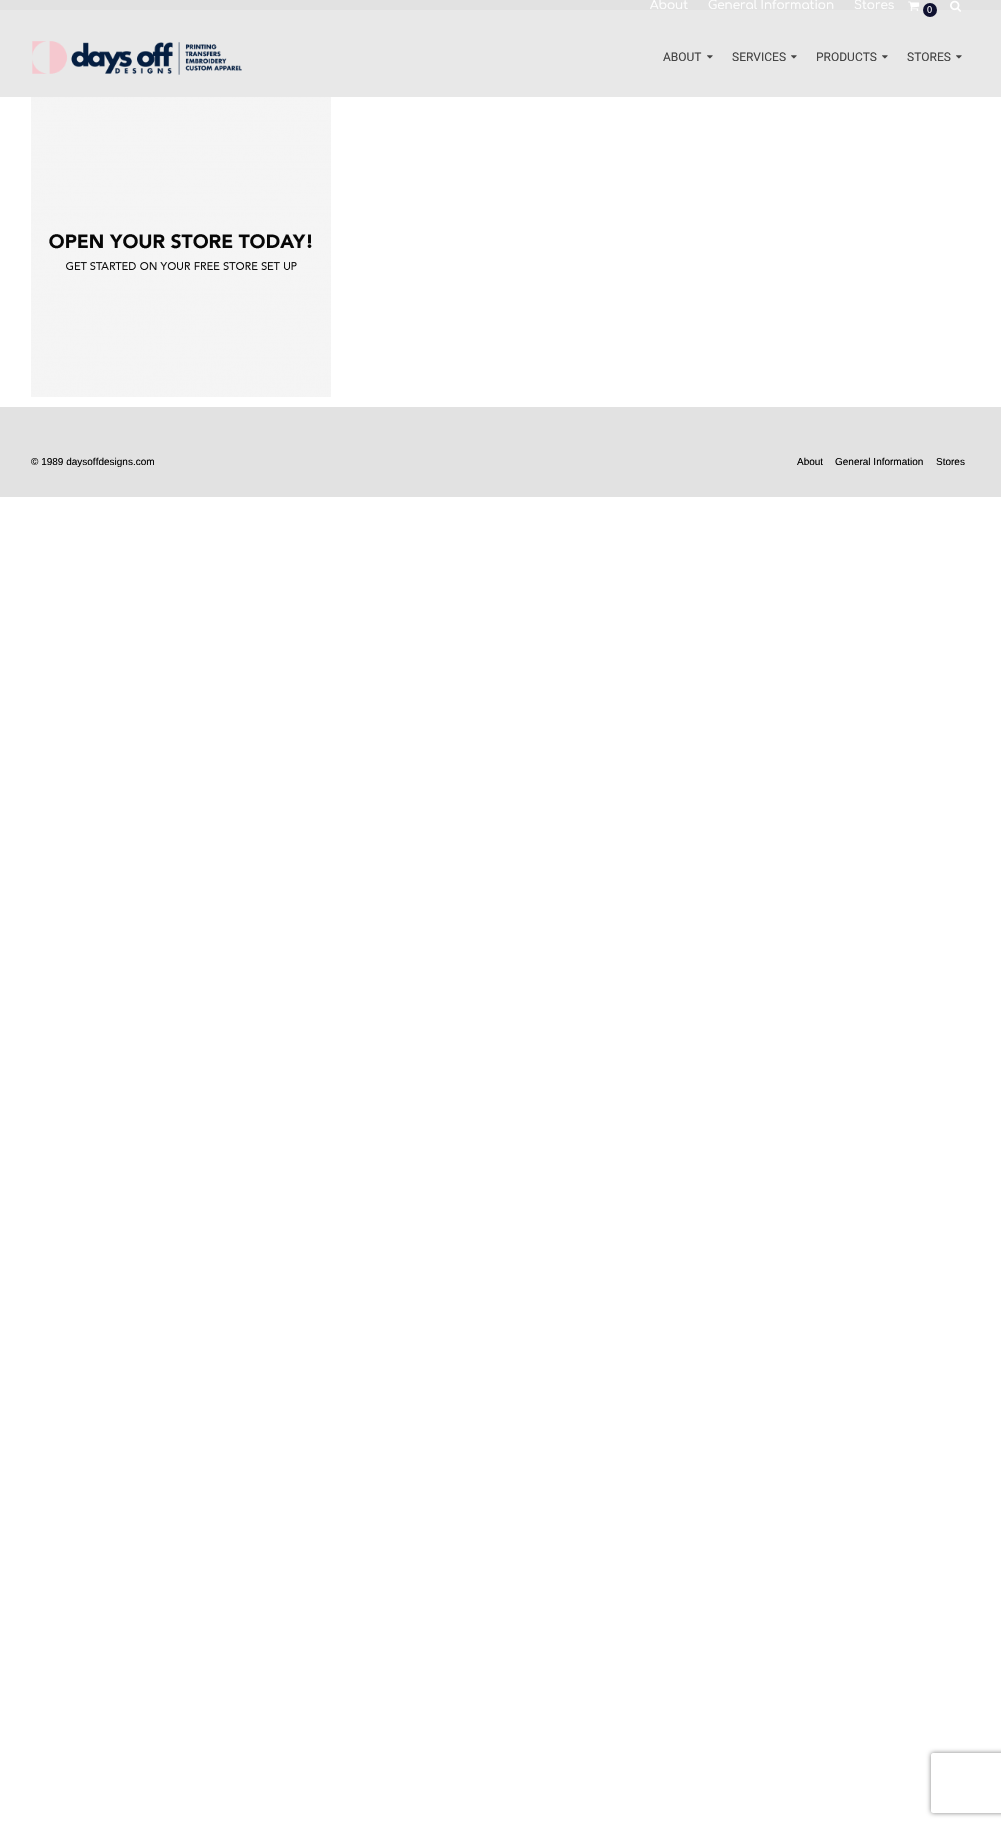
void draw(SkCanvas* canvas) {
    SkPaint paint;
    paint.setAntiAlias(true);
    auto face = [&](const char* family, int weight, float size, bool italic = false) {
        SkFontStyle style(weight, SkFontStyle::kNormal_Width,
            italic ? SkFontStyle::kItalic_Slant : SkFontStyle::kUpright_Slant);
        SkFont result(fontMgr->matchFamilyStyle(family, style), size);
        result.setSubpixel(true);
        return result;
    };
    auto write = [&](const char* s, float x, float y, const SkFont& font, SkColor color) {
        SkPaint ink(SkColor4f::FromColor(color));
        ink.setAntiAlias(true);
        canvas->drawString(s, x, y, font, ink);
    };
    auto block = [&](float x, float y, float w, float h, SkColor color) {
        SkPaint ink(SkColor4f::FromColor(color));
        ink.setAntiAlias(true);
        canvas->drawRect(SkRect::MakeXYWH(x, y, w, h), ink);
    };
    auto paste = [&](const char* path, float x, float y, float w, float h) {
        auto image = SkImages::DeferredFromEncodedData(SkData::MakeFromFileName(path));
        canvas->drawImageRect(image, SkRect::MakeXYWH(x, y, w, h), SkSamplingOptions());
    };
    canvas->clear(SK_ColorWHITE);
    block(0, 10, 1001, 87, SkColorSetRGB(232, 232, 232));
    block(0, 0, 1001, 10, SkColorSetRGB(226, 226, 226));
    auto kFont1 = face("Comfortaa", 400, 12);
    write("About", 650, 9, kFont1, SK_ColorWHITE);
    write("General Information", 708, 9, kFont1, SK_ColorWHITE);
    write("Stores", 854, 9, kFont1, SK_ColorWHITE);
    paste("pic1.png", 908, 1, 12, 10);
    paint.setColor(SkColorSetRGB(15, 17, 48));
    canvas->drawCircle(930, 10, 7, paint);
    auto kFont2 = face("Comfortaa", 400, 9);
    write("0", 927, 13, kFont2, SK_ColorWHITE);
    paste("pic2.png", 950, 0, 11, 12);
    paste("pic3.png", 32, 41, 210, 34);
    auto kFont3 = face("Roboto", 400, 12);
    write("ABOUT", 663, 61, kFont3, SkColorSetRGB(68, 68, 68));
    paste("pic4.png", 707, 55, 6, 4);
    write("SERVICES", 732, 61, kFont3, SkColorSetRGB(68, 68, 68));
    paste("pic4.png", 791, 55, 6, 4);
    write("PRODUCTS", 816, 61, kFont3, SkColorSetRGB(68, 68, 68));
    paste("pic4.png", 882, 55, 6, 4);
    write("STORES", 907, 61, kFont3, SkColorSetRGB(68, 68, 68));
    paste("pic4.png", 956, 55, 6, 4);
    paste("pic5.png", 31, 97, 300, 300);
    block(0, 407, 1001, 90, SkColorSetRGB(226, 226, 226));
    auto kFont4 = face("Liberation Sans", 400, 10);
    write("© 1989 daysoffdesigns.com", 31, 465, kFont4, SK_ColorBLACK);
    write("About", 797, 465, kFont4, SK_ColorBLACK);
    write("General Information", 835, 465, kFont4, SK_ColorBLACK);
    write("Stores", 936, 465, kFont4, SK_ColorBLACK);
    canvas->save();
    canvas->clipPath(SkPathBuilder(SkPathFillType::kEvenOdd).moveTo(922, 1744).lineTo(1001, 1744).lineTo(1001, 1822).lineTo(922, 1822).close().moveTo(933, 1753).lineTo(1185, 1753).cubicTo(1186, 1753, 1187, 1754, 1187, 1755).lineTo(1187, 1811).cubicTo(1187, 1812, 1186, 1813, 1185, 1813).lineTo(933, 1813).cubicTo(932, 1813, 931, 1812, 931, 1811).lineTo(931, 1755).cubicTo(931, 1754, 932, 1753, 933, 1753).close().detach(), true);
    paint.setColor(SkColorSetRGB(128, 128, 128));
    paint.setMaskFilter(SkMaskFilter::MakeBlur(kNormal_SkBlurStyle, 2.5f));
    canvas->drawRoundRect(SkRect::MakeXYWH(931, 1753, 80, 60), 2, 2, paint);
    paint.setMaskFilter(nullptr);
    canvas->restore();
}
